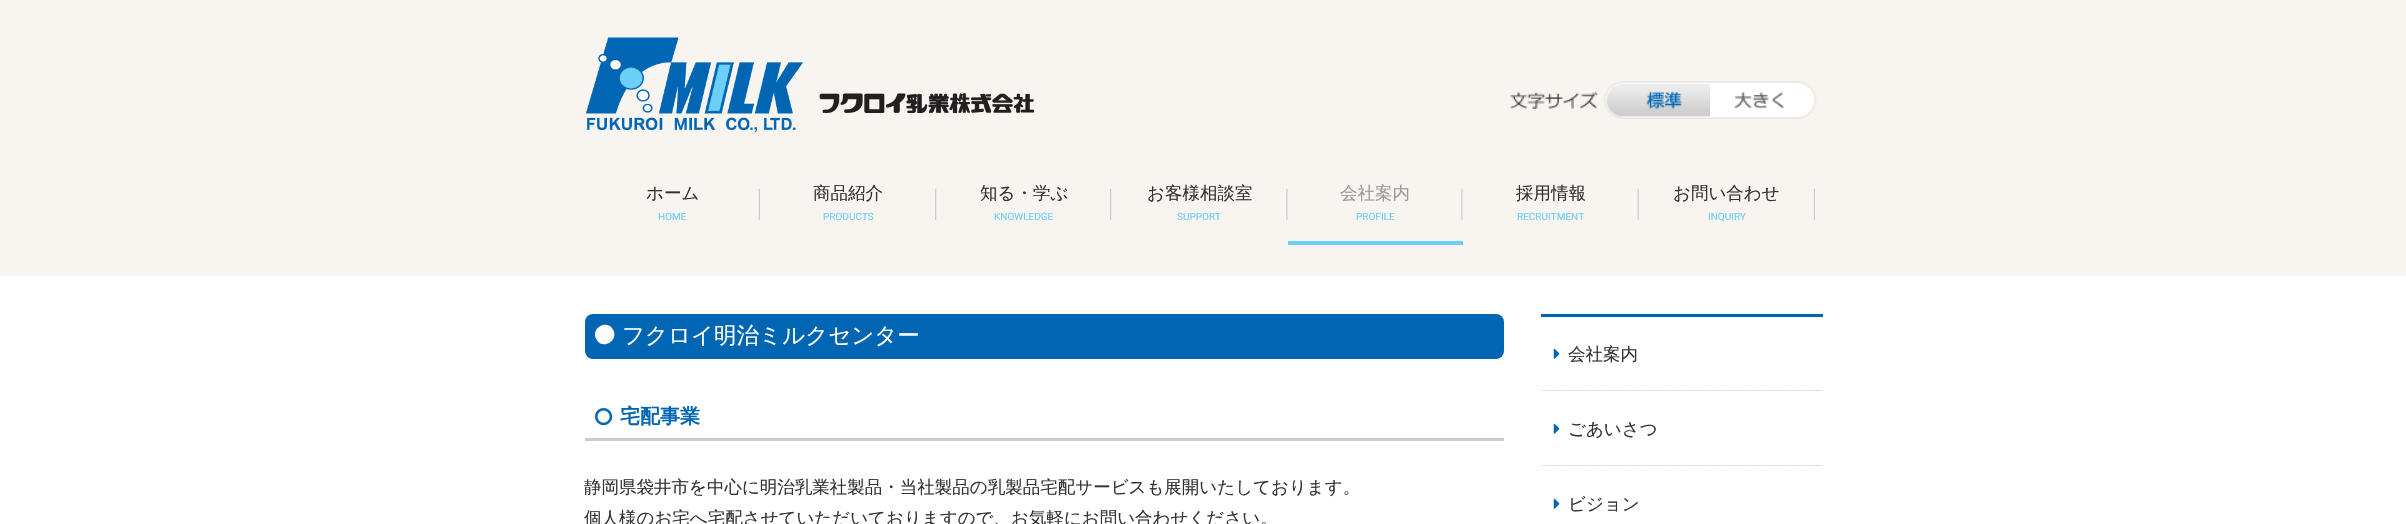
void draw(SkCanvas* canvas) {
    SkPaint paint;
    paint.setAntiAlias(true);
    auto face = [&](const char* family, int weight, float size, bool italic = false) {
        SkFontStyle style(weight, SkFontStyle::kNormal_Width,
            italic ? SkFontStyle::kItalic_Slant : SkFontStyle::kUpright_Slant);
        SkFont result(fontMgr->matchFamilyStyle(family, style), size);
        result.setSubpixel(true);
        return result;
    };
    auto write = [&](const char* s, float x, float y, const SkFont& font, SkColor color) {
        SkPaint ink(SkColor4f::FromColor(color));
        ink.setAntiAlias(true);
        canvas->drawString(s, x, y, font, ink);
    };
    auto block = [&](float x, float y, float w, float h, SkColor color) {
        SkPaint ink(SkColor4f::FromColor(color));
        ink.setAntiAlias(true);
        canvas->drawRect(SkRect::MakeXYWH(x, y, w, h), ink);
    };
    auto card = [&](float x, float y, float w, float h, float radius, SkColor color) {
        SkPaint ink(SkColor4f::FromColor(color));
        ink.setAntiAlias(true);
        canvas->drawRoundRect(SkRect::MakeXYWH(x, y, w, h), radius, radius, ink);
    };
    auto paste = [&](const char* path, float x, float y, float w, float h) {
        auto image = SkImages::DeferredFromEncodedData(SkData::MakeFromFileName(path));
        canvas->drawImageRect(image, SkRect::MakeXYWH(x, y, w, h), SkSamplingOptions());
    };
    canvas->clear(SkColorSetRGB(248, 245, 240));
    paste("pic1.png", 585, 37, 450, 96);
    paste("pic2.png", 1510, 91, 88, 18);
    paste("pic3.png", 1603, 81, 107, 38);
    paste("pic4.png", 1710, 81, 107, 38);
    paste("pic5.png", 758, 188, 2, 32);
    auto kFont1 = face("WenQuanYi Zen Hei", 500, 17.5f);
    write("ホーム", 646, 199, kFont1, SkColorSetRGB(51, 51, 51));
    auto kFont2 = face("Roboto", 400, 10);
    write("HOME", 658, 220, kFont2, SkColorSetRGB(108, 207, 246));
    paste("pic6.png", 935, 188, 2, 32);
    write("商品紹介", 813, 199, kFont1, SkColorSetRGB(51, 51, 51));
    write("PRODUCTS", 823, 220, kFont2, SkColorSetRGB(108, 207, 246));
    paste("pic6.png", 1110, 188, 2, 32);
    write("知る・学ぶ", 980, 199, kFont1, SkColorSetRGB(51, 51, 51));
    write("KNOWLEDGE", 994, 220, kFont2, SkColorSetRGB(108, 207, 246));
    paste("pic7.png", 1286, 188, 2, 32);
    write("お客様相談室", 1147, 199, kFont1, SkColorSetRGB(51, 51, 51));
    write("SUPPORT", 1177, 220, kFont2, SkColorSetRGB(108, 207, 246));
    paste("pic7.png", 1461, 188, 2, 32);
    block(1288, 241, 175, 4, SkColorSetRGB(108, 207, 246));
    write("会社案内", 1340, 199, kFont1, SkColorSetRGB(153, 153, 153));
    write("PROFILE", 1356, 220, kFont2, SkColorSetRGB(108, 207, 246));
    paste("pic8.png", 1637, 188, 2, 32);
    write("採用情報", 1516, 199, kFont1, SkColorSetRGB(51, 51, 51));
    write("RECRUITMENT", 1517, 220, kFont2, SkColorSetRGB(108, 207, 246));
    paste("pic5.png", 1813, 188, 2, 32);
    write("お問い合わせ", 1673, 199, kFont1, SkColorSetRGB(51, 51, 51));
    write("INQUIRY", 1708, 220, kFont2, SkColorSetRGB(108, 207, 246));
    block(0, 276, 2406, 248, SK_ColorWHITE);
    card(585, 314, 919, 45, 8, SkColorSetRGB(0, 102, 179));
    paint.setColor(SK_ColorWHITE);
    canvas->drawPath(SkPathBuilder().moveTo(613, 329.5f).cubicTo(619.5f, 340.5f, 602.5f, 350.5f, 596.5f, 339.5f).cubicTo(590, 328.5f, 606.5f, 318.5f, 613, 329.5f).close().detach(), paint);
    auto kFont3 = face("WenQuanYi Zen Hei", 500, 22.5f);
    write("フクロイ明治ミルクセンター", 622, 343, kFont3, SK_ColorWHITE);
    block(585, 438, 919, 3, SkColorSetRGB(204, 204, 204));
    paste("pic9.png", 595, 408, 18, 18);
    auto kFont4 = face("WenQuanYi Zen Hei", 700, 20);
    write("宅配事業", 620, 423, kFont4, SkColorSetRGB(0, 102, 179));
    write("静岡県袋井市を中心に明治乳業社製品・当社製品の乳製品宅配サービスも展開いたしております。", 584, 493, kFont1, SkColorSetRGB(51, 51, 51));
    write("個人様のお宅へ宅配させていただいておりますので、お気軽にお問い合わせください。", 584, 524, kFont1, SkColorSetRGB(51, 51, 51));
    block(1541, 314, 282, 3, SkColorSetRGB(0, 102, 179));
    paint.setStyle(SkPaint::kStroke_Style);
    paint.setStrokeWidth(1.2f);
    paint.setColor(SkColorSetRGB(204, 204, 204));
    paint.setPathEffect(SkDashPathEffect::Make({{1.25f, 1.25f}}, 0));
    canvas->drawPath(SkPathBuilder().moveTo(1541, 390.5f).lineTo(1822.5f, 390.5f).detach(), paint);
    paint.setPathEffect(nullptr);
    paste("pic10.png", 1553, 348, 7, 11);
    write("会社案内", 1568, 360, kFont1, SkColorSetRGB(51, 51, 51));
    paint.setPathEffect(SkDashPathEffect::Make({{1.25f, 1.25f}}, 0));
    canvas->drawPath(SkPathBuilder().moveTo(1541, 465.5f).lineTo(1822.5f, 465.5f).detach(), paint);
    paint.setPathEffect(nullptr);
    paste("pic10.png", 1553, 423, 7, 11);
    write("ごあいさつ", 1568, 435, kFont1, SkColorSetRGB(51, 51, 51));
    paste("pic10.png", 1553, 498, 7, 11);
    write("ビジョン", 1568, 510, kFont1, SkColorSetRGB(51, 51, 51));
}
